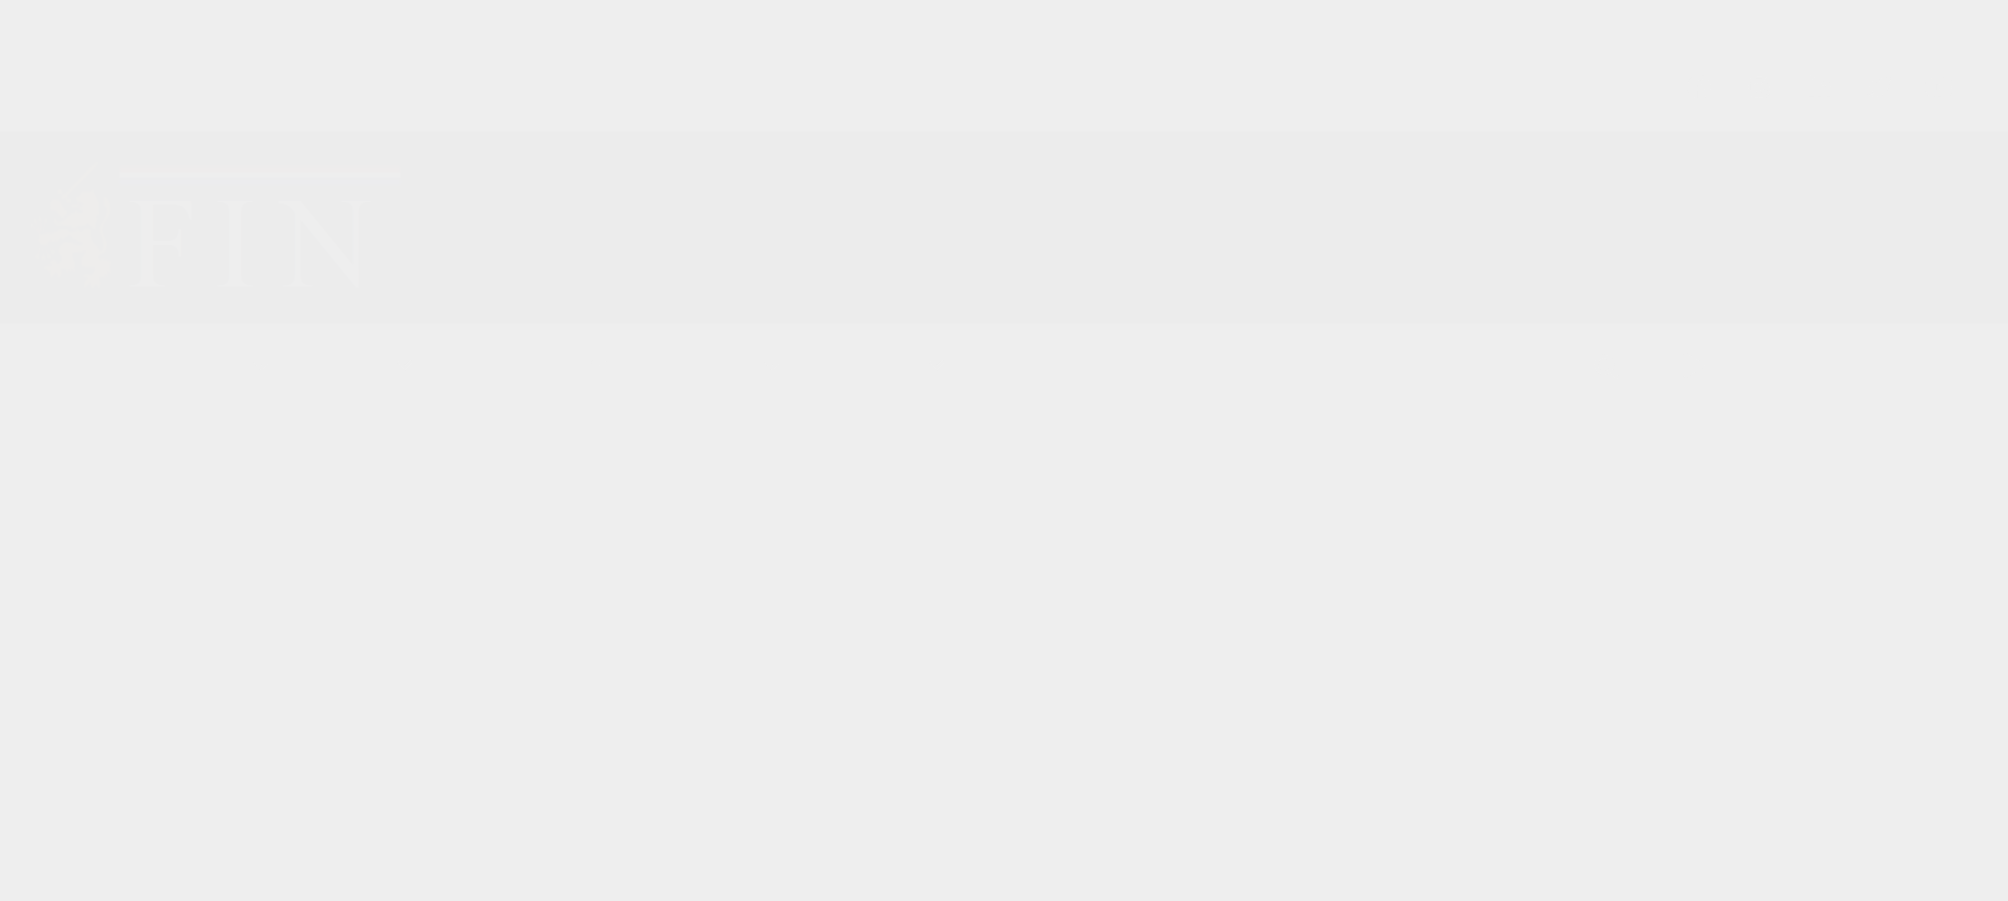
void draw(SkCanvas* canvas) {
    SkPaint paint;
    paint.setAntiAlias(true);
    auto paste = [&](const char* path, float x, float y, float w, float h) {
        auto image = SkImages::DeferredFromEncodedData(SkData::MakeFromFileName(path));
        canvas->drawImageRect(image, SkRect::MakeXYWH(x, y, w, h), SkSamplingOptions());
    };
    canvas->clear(SkColorSetRGB(238, 238, 238));
    paste("pic1.png", 1687, 75, 25, 24);
    paste("pic2.png", 1748, 76, 22, 22);
    paste("pic3.png", 1809, 74, 22, 23);
    paste("pic4.png", 1867, 77, 25, 20);
    paste("pic5.png", 1925, 77, 27, 20);
    paste("pic6.png", 0, 131, 2008, 193);
    paste("pic7.png", 253, 360, 17, 11);
    paste("pic8.png", 397, 360, 16, 11);
    paste("pic9.png", 591, 360, 16, 11);
    paste("pic7.png", 764, 360, 17, 11);
    paste("pic8.png", 929, 360, 16, 11);
    paste("pic10.png", 1594, 354, 25, 26);
    paste("pic11.png", 1683, 353, 22, 25);
}
